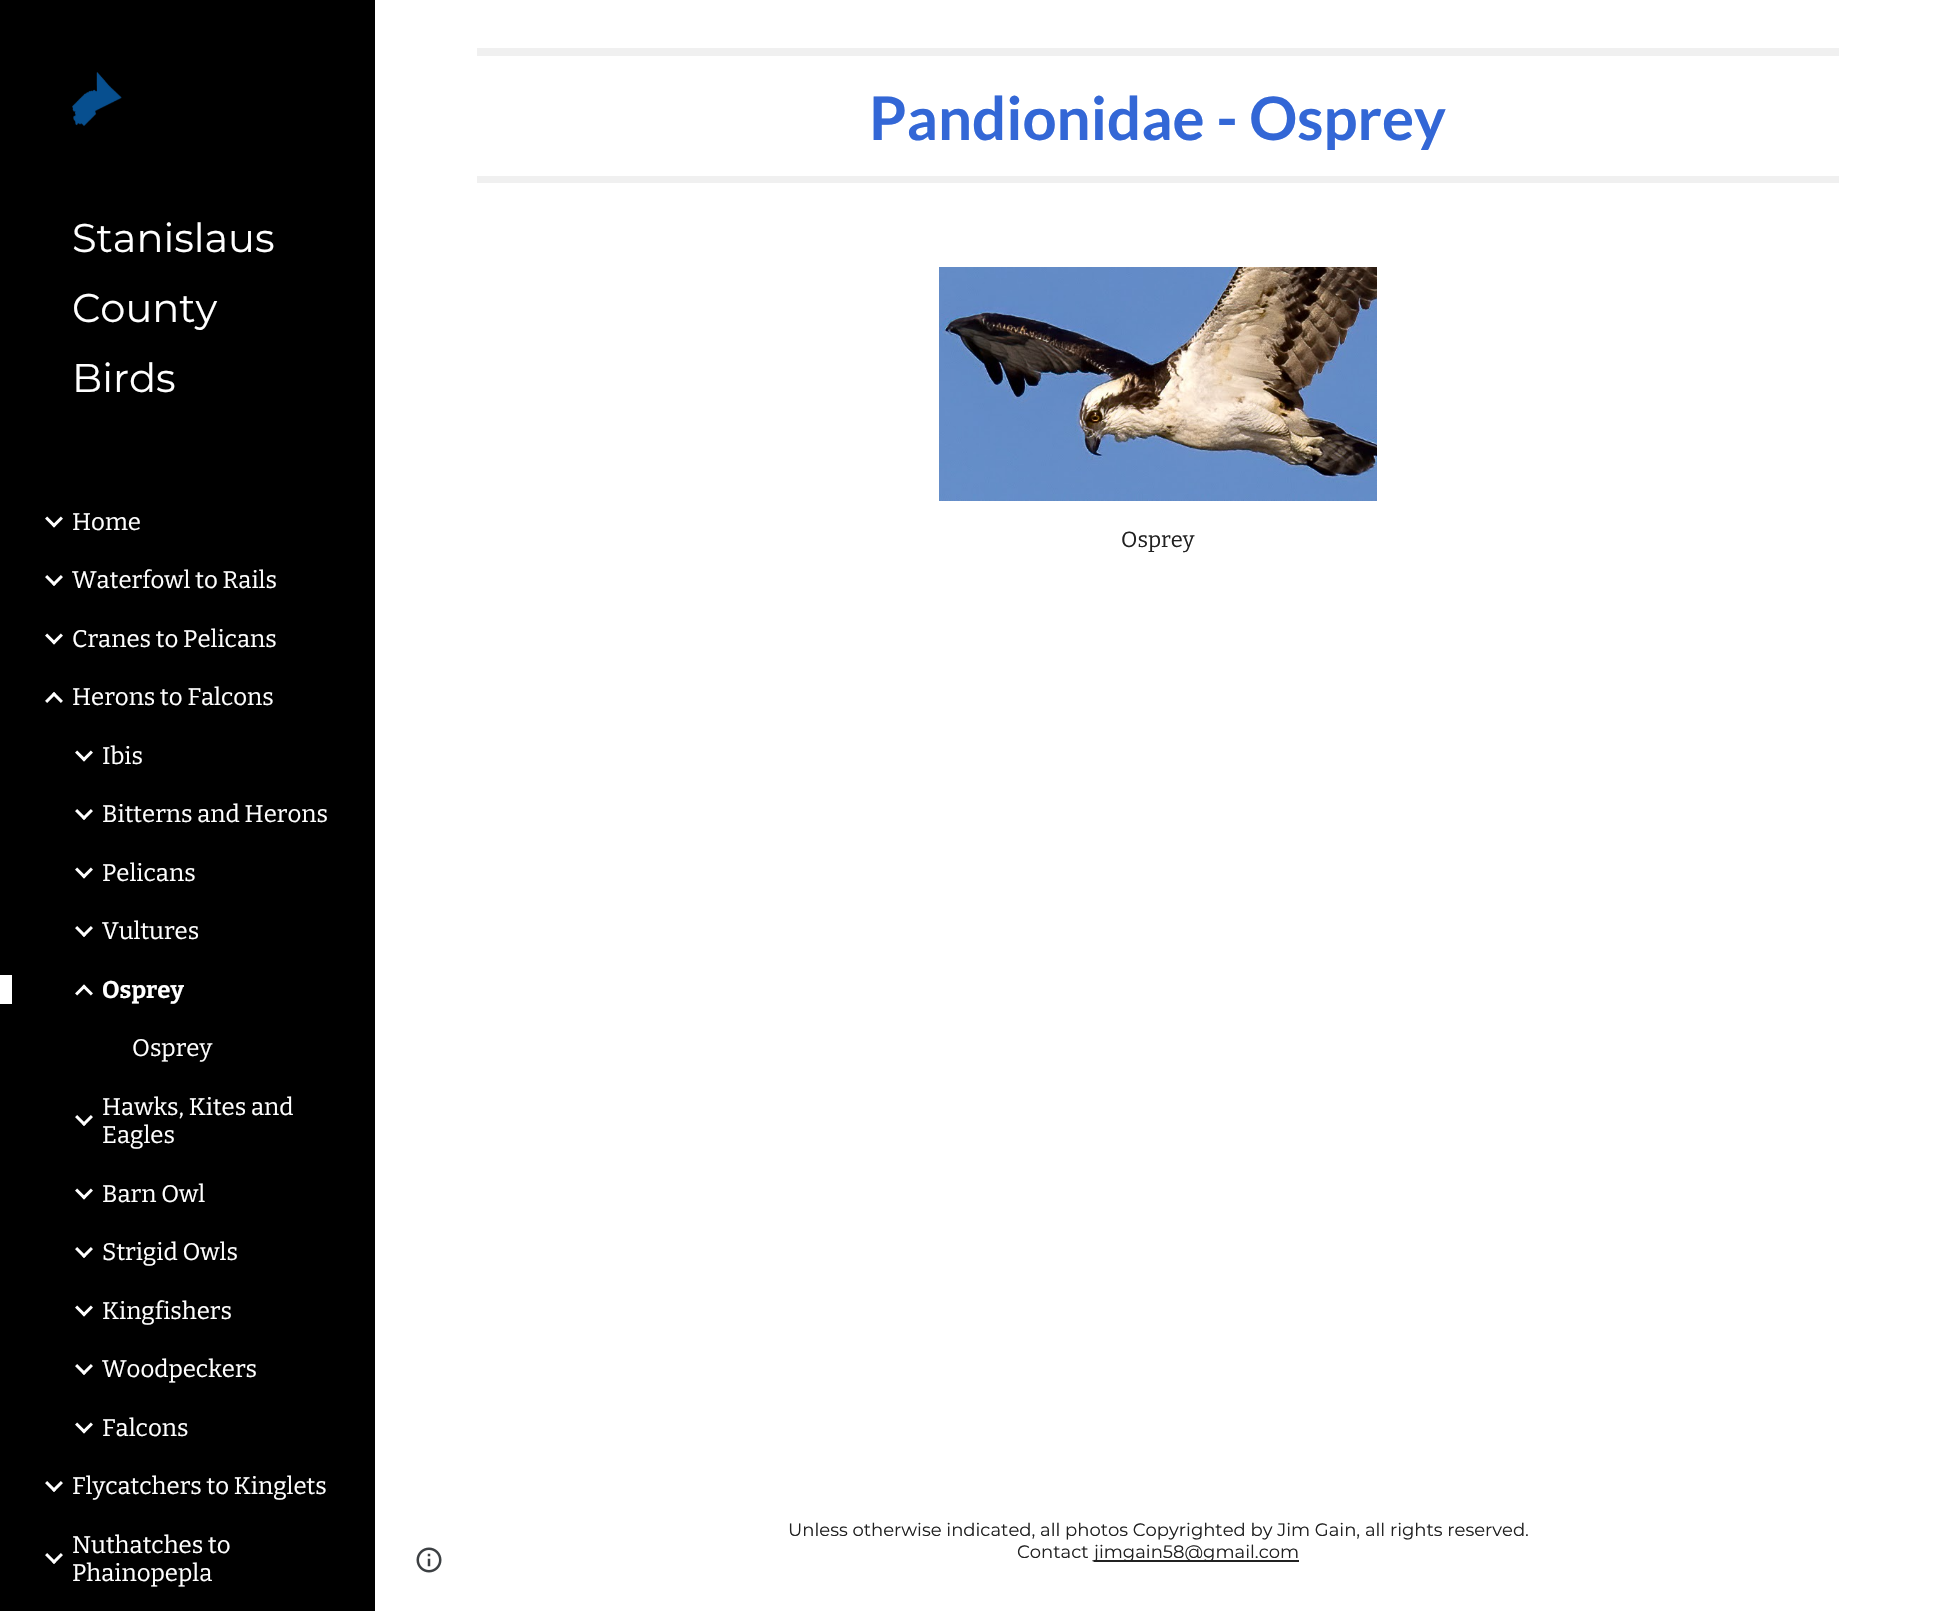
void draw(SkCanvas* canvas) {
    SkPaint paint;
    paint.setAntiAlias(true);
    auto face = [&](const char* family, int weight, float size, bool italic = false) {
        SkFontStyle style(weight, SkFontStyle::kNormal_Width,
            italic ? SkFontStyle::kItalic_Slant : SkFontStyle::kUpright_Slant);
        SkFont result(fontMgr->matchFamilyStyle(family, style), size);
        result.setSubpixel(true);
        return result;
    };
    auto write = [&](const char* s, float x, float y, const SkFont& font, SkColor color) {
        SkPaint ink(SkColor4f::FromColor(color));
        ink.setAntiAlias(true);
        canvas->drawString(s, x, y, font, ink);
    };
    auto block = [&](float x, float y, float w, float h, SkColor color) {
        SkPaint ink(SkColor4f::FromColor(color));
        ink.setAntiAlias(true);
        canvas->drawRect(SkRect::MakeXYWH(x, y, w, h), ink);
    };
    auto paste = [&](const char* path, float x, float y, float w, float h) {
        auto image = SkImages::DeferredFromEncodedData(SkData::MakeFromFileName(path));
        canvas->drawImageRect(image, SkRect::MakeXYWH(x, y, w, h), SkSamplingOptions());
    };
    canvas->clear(SK_ColorWHITE);
    block(0, 0, 375, 1611, SK_ColorBLACK);
    paste("pic1.png", 72, 72, 50, 54);
    auto kFont1 = face("Montserrat", 400, 40);
    write("Stanislaus", 72, 252, kFont1, SK_ColorWHITE);
    write("County", 72, 322, kFont1, SK_ColorWHITE);
    write("Birds", 72, 392, kFont1, SK_ColorWHITE);
    paste("pic2.png", 45, 516, 18, 12);
    auto kFont2 = face("Bitter", 400, 24);
    write("Home", 72, 530, kFont2, SK_ColorWHITE);
    paste("pic3.png", 45, 575, 18, 11);
    write("Waterfowl to Rails", 72, 588, kFont2, SK_ColorWHITE);
    paste("pic2.png", 45, 633, 18, 12);
    write("Cranes to Pelicans", 72, 647, kFont2, SK_ColorWHITE);
    paste("pic4.png", 45, 692, 18, 11);
    write("Herons to Falcons", 72, 705, kFont2, SK_ColorWHITE);
    paste("pic2.png", 75, 750, 18, 12);
    write("Ibis", 102, 764, kFont2, SK_ColorWHITE);
    paste("pic3.png", 75, 809, 18, 11);
    write("Bitterns and Herons", 102, 822, kFont2, SK_ColorWHITE);
    paste("pic2.png", 75, 867, 18, 12);
    write("Pelicans", 102, 881, kFont2, SK_ColorWHITE);
    paste("pic3.png", 75, 926, 18, 11);
    write("Vultures", 102, 939, kFont2, SK_ColorWHITE);
    block(0, 975, 12, 29, SK_ColorWHITE);
    paste("pic5.png", 75, 984, 18, 12);
    auto kFont3 = face("Bitter", 700, 24);
    write("Osprey", 102, 998, kFont3, SK_ColorWHITE);
    write("Osprey", 132, 1056, kFont2, SK_ColorWHITE);
    paste("pic3.png", 75, 1115, 18, 11);
    write("Hawks, Kites and", 102, 1115, kFont2, SK_ColorWHITE);
    write("Eagles", 102, 1143, kFont2, SK_ColorWHITE);
    paste("pic2.png", 75, 1188, 18, 12);
    write("Barn Owl", 102, 1202, kFont2, SK_ColorWHITE);
    paste("pic3.png", 75, 1247, 18, 11);
    write("Strigid Owls", 102, 1260, kFont2, SK_ColorWHITE);
    paste("pic2.png", 75, 1305, 18, 12);
    write("Kingfishers", 102, 1319, kFont2, SK_ColorWHITE);
    paste("pic3.png", 75, 1364, 18, 11);
    write("Woodpeckers", 102, 1377, kFont2, SK_ColorWHITE);
    paste("pic2.png", 75, 1422, 18, 12);
    write("Falcons", 102, 1436, kFont2, SK_ColorWHITE);
    paste("pic3.png", 45, 1481, 18, 11);
    write("Flycatchers to Kinglets", 72, 1494, kFont2, SK_ColorWHITE);
    paste("pic3.png", 45, 1553, 18, 11);
    write("Nuthatches to", 72, 1553, kFont2, SK_ColorWHITE);
    write("Phainopepla", 72, 1581, kFont2, SK_ColorWHITE);
    block(477, 48, 1362, 8, SkColorSetRGB(240, 240, 240));
    block(477, 176, 1362, 7, SkColorSetRGB(240, 240, 240));
    auto kFont4 = face("Lato", 700, 60);
    write("Pandionidae - Osprey", 869, 140, kFont4, SkColorSetRGB(51, 103, 214));
    paste("pic6.png", 939, 267, 438, 234);
    auto kFont5 = face("Bitter", 400, 22);
    write("Osprey", 1121, 547, kFont5, SkColorSetRGB(33, 33, 33));
    paste("pic7.png", 416, 1547, 26, 26);
    auto kFont6 = face("Montserrat", 400, 18);
    write("Unless otherwise indicated, all photos Copyrighted by Jim Gain, all rights reserved.", 788, 1536, kFont6, SkColorSetRGB(33, 33, 33));
    write("Contact", 1017, 1558, kFont6, SkColorSetRGB(33, 33, 33));
    block(1094, 1560, 205, 2, SkColorSetRGB(33, 33, 33));
    write("jimgain58@gmail.com", 1094, 1558, kFont6, SkColorSetRGB(33, 33, 33));
}
